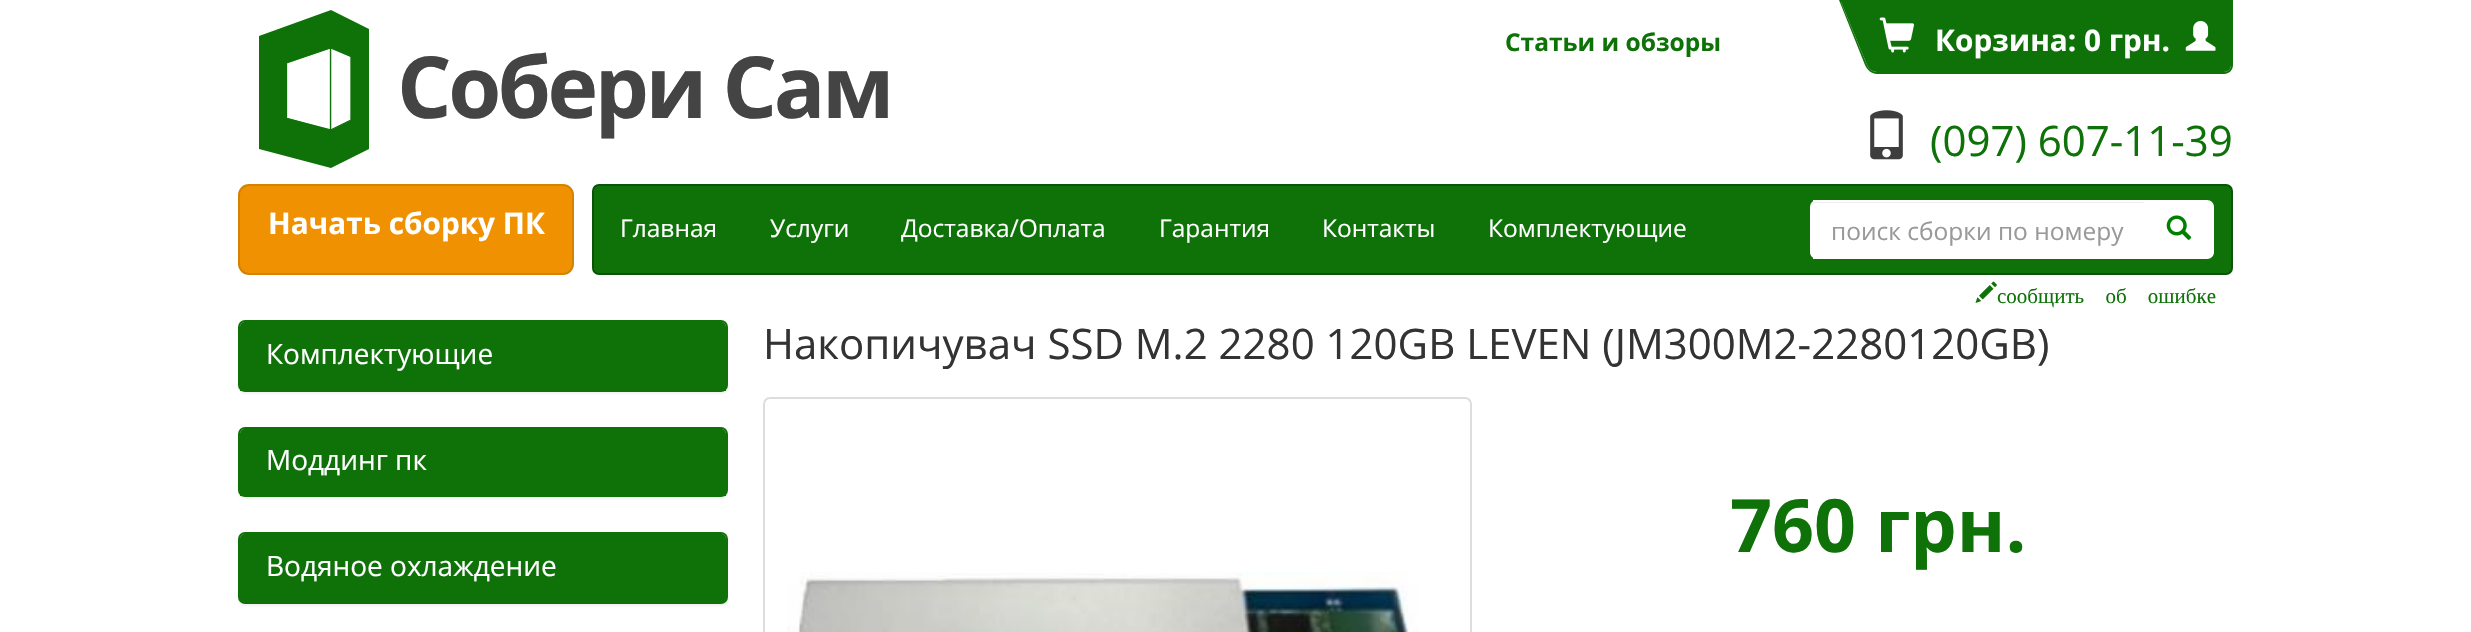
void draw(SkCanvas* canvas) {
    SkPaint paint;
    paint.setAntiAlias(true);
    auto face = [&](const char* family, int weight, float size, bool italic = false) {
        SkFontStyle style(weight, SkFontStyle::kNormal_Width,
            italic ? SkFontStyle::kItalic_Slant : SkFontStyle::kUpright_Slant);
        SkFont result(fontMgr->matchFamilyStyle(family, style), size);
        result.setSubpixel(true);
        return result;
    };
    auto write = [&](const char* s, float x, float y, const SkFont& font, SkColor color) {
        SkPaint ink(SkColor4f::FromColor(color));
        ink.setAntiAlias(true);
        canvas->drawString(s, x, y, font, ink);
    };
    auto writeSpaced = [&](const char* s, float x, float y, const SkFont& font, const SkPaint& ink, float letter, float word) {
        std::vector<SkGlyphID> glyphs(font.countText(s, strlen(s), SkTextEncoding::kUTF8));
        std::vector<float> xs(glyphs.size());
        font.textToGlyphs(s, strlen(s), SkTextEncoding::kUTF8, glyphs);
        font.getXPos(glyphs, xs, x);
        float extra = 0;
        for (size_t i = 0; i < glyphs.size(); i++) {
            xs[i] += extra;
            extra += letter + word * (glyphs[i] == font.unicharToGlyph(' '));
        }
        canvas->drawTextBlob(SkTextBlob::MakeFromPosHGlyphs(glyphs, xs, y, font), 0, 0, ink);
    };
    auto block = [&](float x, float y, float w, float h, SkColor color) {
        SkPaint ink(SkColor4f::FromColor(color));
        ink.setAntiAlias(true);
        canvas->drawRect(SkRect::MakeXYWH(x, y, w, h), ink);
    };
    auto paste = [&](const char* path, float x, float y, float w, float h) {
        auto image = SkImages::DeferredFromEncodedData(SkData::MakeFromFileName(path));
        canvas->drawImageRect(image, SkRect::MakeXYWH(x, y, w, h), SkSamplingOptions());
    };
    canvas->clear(SK_ColorWHITE);
    auto kFont1 = face("Open Sans", 700, 24.5f);
    write("Статьи и обзоры", 1505, 51, kFont1, SkColorSetRGB(14, 114, 9));
    paint.setColor(SkColorSetRGB(14, 114, 9));
    canvas->drawPath(SkPathBuilder().moveTo(1880, 2).lineTo(2231, 2).lineTo(2231, 65).cubicTo(2231, 69, 2228, 72, 2224, 72).lineTo(1880, 72).close().detach(), paint);
    canvas->drawPath(SkPathBuilder(SkPathFillType::kEvenOdd).moveTo(1880, 0).lineTo(2233, 0).lineTo(2233, 65).cubicTo(2233, 70, 2229, 74, 2224, 74).lineTo(1880, 74).close().moveTo(1880, 2).lineTo(2231, 2).lineTo(2231, 65).cubicTo(2231, 69, 2228, 72, 2224, 72).lineTo(1880, 72).close().detach(), paint);
    canvas->drawPath(SkPathBuilder().moveTo(1841, 2).lineTo(1892, 2).lineTo(1920, 72).lineTo(1877, 72).cubicTo(1873, 72, 1868, 69, 1867, 65).close().detach(), paint);
    canvas->drawPath(SkPathBuilder(SkPathFillType::kEvenOdd).moveTo(1839, 0).lineTo(1891, 0).lineTo(1921, 74).lineTo(1877, 74).cubicTo(1872, 74, 1867, 70, 1865, 65).close().moveTo(1841, 2).lineTo(1892, 2).lineTo(1920, 72).lineTo(1877, 72).cubicTo(1873, 72, 1868, 69, 1867, 65).close().detach(), paint);
    paste("pic1.png", 1879, 17, 35, 36);
    auto kFont2 = face("Open Sans", 700, 29.75f);
    write("Корзина: 0 грн.", 1935, 51, kFont2, SK_ColorWHITE);
    paste("pic2.png", 2185, 21, 31, 30);
    canvas->drawPath(SkPathBuilder().moveTo(259, 36).lineTo(331, 10).lineTo(369, 29).lineTo(369, 149).lineTo(331, 168).lineTo(259, 149).close().detach(), paint);
    paint.setColor(SK_ColorWHITE);
    canvas->drawPath(SkPathBuilder().moveTo(331, 48).lineTo(351, 57).lineTo(351, 120).lineTo(331, 130).close().detach(), paint);
    paint.setStyle(SkPaint::kStroke_Style);
    paint.setStrokeWidth(1.3f);
    paint.setStrokeCap(SkPaint::kRound_Cap);
    paint.setStrokeJoin(SkPaint::kRound_Join);
    paint.setColor(SkColorSetRGB(14, 114, 9));
    canvas->drawPath(SkPathBuilder().moveTo(330.5f, 48).lineTo(351, 56.5f).lineTo(351, 120).lineTo(330.5f, 130).close().detach(), paint);
    paint.setStyle(SkPaint::kFill_Style);
    paint.setColor(SK_ColorWHITE);
    canvas->drawPath(SkPathBuilder().moveTo(287, 63).lineTo(331, 48).lineTo(331, 130).lineTo(287, 118).close().detach(), paint);
    paint.setStyle(SkPaint::kStroke_Style);
    paint.setColor(SkColorSetRGB(14, 114, 9));
    canvas->drawPath(SkPathBuilder().moveTo(286.5f, 63).lineTo(330.5f, 48).lineTo(330.5f, 130).lineTo(286.5f, 118.5f).close().detach(), paint);
    auto kFont3 = face("Open Sans", 700, 85.75f);
    paint.setStyle(SkPaint::kFill_Style);
    paint.setColor(SkColorSetRGB(68, 68, 68));
    writeSpaced("Собери Сам", 397, 118, kFont3, paint, -3.5f, 0);
    paste("pic3.png", 1870, 110, 33, 50);
    auto kFont4 = face("Open Sans", 400, 42);
    write("(097) 607-11-39", 1930, 156, kFont4, SkColorSetRGB(14, 114, 9));
    paint.setColor(SkColorSetRGB(239, 145, 0));
    canvas->drawRoundRect(SkRect::MakeXYWH(239, 185, 334, 89), 10, 10, paint);
    paint.setStyle(SkPaint::kStroke_Style);
    paint.setStrokeWidth(2);
    paint.setStrokeCap(SkPaint::kButt_Cap);
    paint.setStrokeJoin(SkPaint::kMiter_Join);
    paint.setColor(SkColorSetRGB(213, 130, 0));
    canvas->drawRoundRect(SkRect::MakeXYWH(239, 185, 334, 89), 10, 10, paint);
    write("Начать сборку ПК", 268, 234, kFont2, SK_ColorWHITE);
    paint.setStyle(SkPaint::kFill_Style);
    paint.setColor(SkColorSetRGB(14, 114, 9));
    canvas->drawRoundRect(SkRect::MakeXYWH(593, 185, 1639, 89), 6, 6, paint);
    paint.setStyle(SkPaint::kStroke_Style);
    paint.setColor(SkColorSetRGB(10, 83, 7));
    canvas->drawRoundRect(SkRect::MakeXYWH(593, 185, 1639, 89), 6, 6, paint);
    auto kFont5 = face("Open Sans", 400, 24.5f);
    write("Главная", 620, 237, kFont5, SK_ColorWHITE);
    write("Услуги", 770, 237, kFont5, SK_ColorWHITE);
    write("Доставка/Оплата", 901, 237, kFont5, SK_ColorWHITE);
    write("Гарантия", 1159, 237, kFont5, SK_ColorWHITE);
    write("Контакты", 1322, 237, kFont5, SK_ColorWHITE);
    write("Комплектующие", 1488, 237, kFont5, SK_ColorWHITE);
    paint.setStyle(SkPaint::kFill_Style);
    paint.setColor(SK_ColorWHITE);
    canvas->drawPath(SkPathBuilder().moveTo(1817, 200).lineTo(2146, 200).lineTo(2146, 259).lineTo(1817, 259).cubicTo(1813, 259, 1810, 256, 1810, 252).lineTo(1810, 207).cubicTo(1810, 203, 1813, 200, 1817, 200).close().detach(), paint);
    paint.setColor(SkColorSetARGB(18, 0, 0, 0));
    canvas->drawPath(SkPathBuilder().moveTo(1816, 203).lineTo(2144, 203).lineTo(2144, 201).lineTo(1816, 201).cubicTo(1813, 201, 1810, 204, 1810, 206).lineTo(1810, 252).lineTo(1810, 254).lineTo(1810, 208).cubicTo(1810, 205, 1813, 203, 1816, 203).close().detach(), paint);
    block(1813, 200, 333, 2, SK_ColorWHITE);
    block(1813, 257, 4, 2, SK_ColorWHITE);
    write("поиск сборки по номеру", 1831, 240, kFont5, SkColorSetRGB(153, 153, 153));
    paint.setColor(SK_ColorWHITE);
    canvas->drawPath(SkPathBuilder().moveTo(2144, 200).lineTo(2207, 200).cubicTo(2211, 200, 2214, 203, 2214, 207).lineTo(2214, 252).cubicTo(2214, 256, 2211, 259, 2207, 259).lineTo(2144, 259).close().detach(), paint);
    paste("pic4.png", 2166, 215, 26, 25);
    paste("pic5.png", 1975, 281, 22, 22);
    auto kFont6 = face("Liberation Serif", 400, 21);
    paint.setColor(SkColorSetRGB(14, 114, 9));
    writeSpaced("сообщить об ошибке", 1997, 303, kFont6, paint, 0, 16);
    paint.setColor(SkColorSetARGB(13, 0, 0, 0));
    paint.setMaskFilter(SkMaskFilter::MakeBlur(kNormal_SkBlurStyle, 1));
    canvas->drawRoundRect(SkRect::MakeXYWH(238, 322, 490, 72), 7, 7, paint);
    paint.setMaskFilter(nullptr);
    paint.setStyle(SkPaint::kStroke_Style);
    paint.setColor(SkColorSetRGB(14, 114, 9));
    canvas->drawRoundRect(SkRect::MakeXYWH(239, 321, 488, 70), 6, 6, paint);
    paint.setStyle(SkPaint::kFill_Style);
    canvas->drawPath(SkPathBuilder().moveTo(245, 322).lineTo(721, 322).cubicTo(724, 322, 726, 324, 726, 327).lineTo(726, 390).lineTo(240, 390).lineTo(240, 327).cubicTo(240, 324, 242, 322, 245, 322).close().detach(), paint);
    block(240, 390, 486, 1, SkColorSetRGB(14, 114, 9));
    auto kFont7 = face("Open Sans", 400, 28);
    write("Комплектующие", 266, 364, kFont7, SK_ColorWHITE);
    paint.setColor(SkColorSetARGB(13, 0, 0, 0));
    paint.setMaskFilter(SkMaskFilter::MakeBlur(kNormal_SkBlurStyle, 1));
    canvas->drawRoundRect(SkRect::MakeXYWH(238, 429, 490, 70), 7, 7, paint);
    paint.setMaskFilter(nullptr);
    paint.setStyle(SkPaint::kStroke_Style);
    paint.setColor(SkColorSetRGB(14, 114, 9));
    canvas->drawRoundRect(SkRect::MakeXYWH(239, 428, 488, 68), 6, 6, paint);
    paint.setStyle(SkPaint::kFill_Style);
    canvas->drawPath(SkPathBuilder().moveTo(245, 429).lineTo(721, 429).cubicTo(724, 429, 726, 431, 726, 434).lineTo(726, 495).lineTo(240, 495).lineTo(240, 434).cubicTo(240, 431, 242, 429, 245, 429).close().detach(), paint);
    block(240, 495, 486, 1, SkColorSetRGB(14, 114, 9));
    write("Mоддинг пк", 266, 470, kFont7, SK_ColorWHITE);
    paint.setColor(SkColorSetARGB(13, 0, 0, 0));
    paint.setMaskFilter(SkMaskFilter::MakeBlur(kNormal_SkBlurStyle, 1));
    canvas->drawRoundRect(SkRect::MakeXYWH(238, 534, 490, 72), 7, 7, paint);
    paint.setMaskFilter(nullptr);
    paint.setStyle(SkPaint::kStroke_Style);
    paint.setColor(SkColorSetRGB(14, 114, 9));
    canvas->drawRoundRect(SkRect::MakeXYWH(239, 533, 488, 70), 6, 6, paint);
    paint.setStyle(SkPaint::kFill_Style);
    canvas->drawPath(SkPathBuilder().moveTo(245, 534).lineTo(721, 534).cubicTo(724, 534, 726, 536, 726, 539).lineTo(726, 602).lineTo(240, 602).lineTo(240, 539).cubicTo(240, 536, 242, 534, 245, 534).close().detach(), paint);
    write("Водяное охлаждение", 266, 576, kFont7, SK_ColorWHITE);
    write("Накопичувач SSD M.2 2280 120GB LEVEN (JM300M2-2280120GB)", 763, 359, kFont4, SkColorSetRGB(51, 51, 51));
    paint.setStyle(SkPaint::kStroke_Style);
    paint.setColor(SkColorSetRGB(221, 221, 221));
    canvas->drawRoundRect(SkRect::MakeXYWH(764, 398, 707, 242), 6, 6, paint);
    paste("pic6.png", 787, 572, 632, 60);
    auto kFont8 = face("Open Sans", 700, 73.5f);
    write("760 грн.", 1730, 552, kFont8, SkColorSetRGB(14, 114, 9));
}
